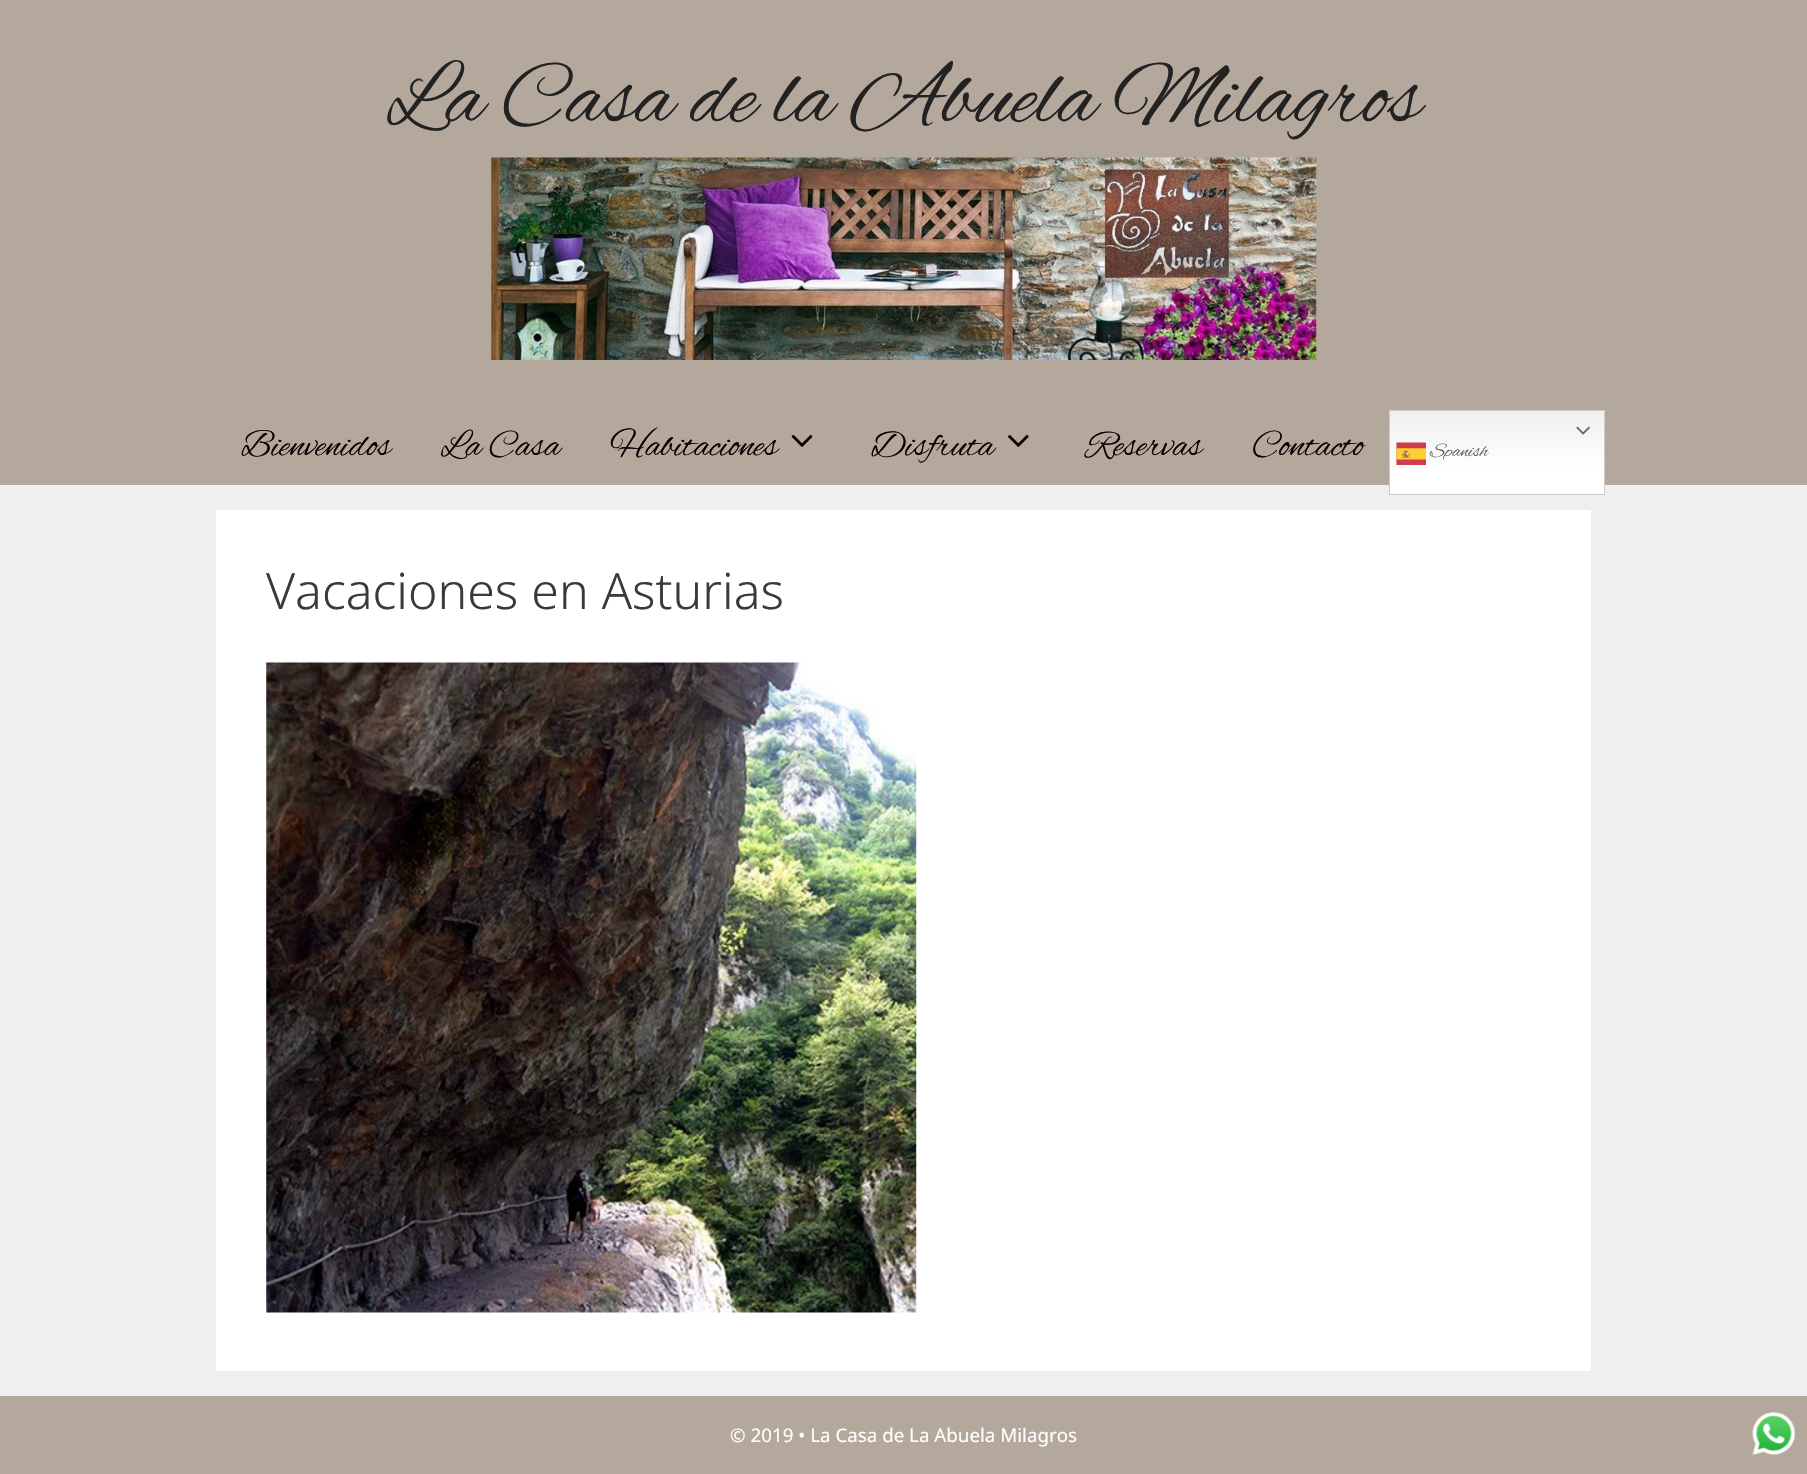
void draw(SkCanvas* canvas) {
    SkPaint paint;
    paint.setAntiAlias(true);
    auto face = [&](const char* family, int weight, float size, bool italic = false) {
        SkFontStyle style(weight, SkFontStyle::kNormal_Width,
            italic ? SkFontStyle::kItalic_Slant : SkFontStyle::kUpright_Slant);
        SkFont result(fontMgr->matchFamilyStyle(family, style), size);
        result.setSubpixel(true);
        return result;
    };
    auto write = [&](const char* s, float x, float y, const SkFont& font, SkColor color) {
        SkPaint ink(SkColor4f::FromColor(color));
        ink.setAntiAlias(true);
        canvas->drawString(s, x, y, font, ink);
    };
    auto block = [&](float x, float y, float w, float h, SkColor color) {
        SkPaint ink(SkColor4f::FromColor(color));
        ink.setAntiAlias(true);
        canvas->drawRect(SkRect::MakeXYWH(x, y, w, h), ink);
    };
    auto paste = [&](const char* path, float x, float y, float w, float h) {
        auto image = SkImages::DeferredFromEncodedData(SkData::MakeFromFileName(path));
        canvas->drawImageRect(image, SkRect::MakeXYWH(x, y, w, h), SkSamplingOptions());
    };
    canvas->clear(SkColorSetRGB(239, 239, 239));
    block(0, 0, 1807, 485, SkColorSetRGB(180, 167, 155));
    auto kFont1 = face("Alex Brush", 400, 90);
    write("La Casa de la Abuela Milagros", 387, 121, kFont1, SkColorSetRGB(34, 34, 34));
    paste("pic1.png", 491, 157, 826, 203);
    auto kFont2 = face("Alex Brush", 400, 37.5f);
    write("Bienvenidos", 241, 455, kFont2, SkColorSetRGB(10, 0, 1));
    write("La Casa", 441, 455, kFont2, SkColorSetRGB(10, 0, 1));
    write("Habitaciones", 610, 455, kFont2, SkColorSetRGB(10, 0, 1));
    paste("pic2.png", 791, 434, 22, 13);
    write("Disfruta", 871, 455, kFont2, SkColorSetRGB(10, 0, 1));
    paste("pic3.png", 1008, 434, 21, 13);
    write("Reservas", 1086, 455, kFont2, SkColorSetRGB(10, 0, 1));
    write("Contacto", 1252, 455, kFont2, SkColorSetRGB(10, 0, 1));
    {
        const SkColor colors[] = {SkColorSetRGB(239, 239, 239), SK_ColorWHITE};
        const float stops[] = {0, 0.7f};
        const SkPoint ends[] = {{1497, 410}, {1497, 495}};
        paint.setShader(SkGradientShader::MakeLinear(ends, colors, stops, 2, SkTileMode::kClamp));
        paint.setAlpha(255);
    }
    canvas->drawRect(SkRect::MakeXYWH(1390, 411, 214, 83), paint);
    paint.setStyle(SkPaint::kStroke_Style);
    paint.setStrokeWidth(1);
    paint.setShader(nullptr);
    paint.setColor(SkColorSetRGB(204, 204, 204));
    canvas->drawRect(SkRect::MakeXYWH(1389.5f, 410.5f, 215, 84), paint);
    paste("pic4.png", 1576, 426, 14, 9);
    paste("pic5.png", 1396, 442, 30, 23);
    auto kFont3 = face("Alex Brush", 400, 20);
    write("Spanish", 1430, 456, kFont3, SkColorSetRGB(102, 102, 102));
    block(216, 510, 1375, 861, SK_ColorWHITE);
    auto kFont4 = face("Noto Sans", 300, 50);
    write("Vacaciones en Asturias", 266, 609, kFont4, SkColorSetRGB(58, 58, 58));
    paste("pic6.png", 266, 662, 651, 651);
    block(0, 1396, 1807, 78, SkColorSetRGB(180, 167, 155));
    auto kFont5 = face("Noto Sans", 400, 18.75f);
    write("© 2019 • La Casa de La Abuela Milagros", 730, 1442, kFont5, SK_ColorWHITE);
    paste("pic7.png", 1752, 1412, 44, 44);
}
